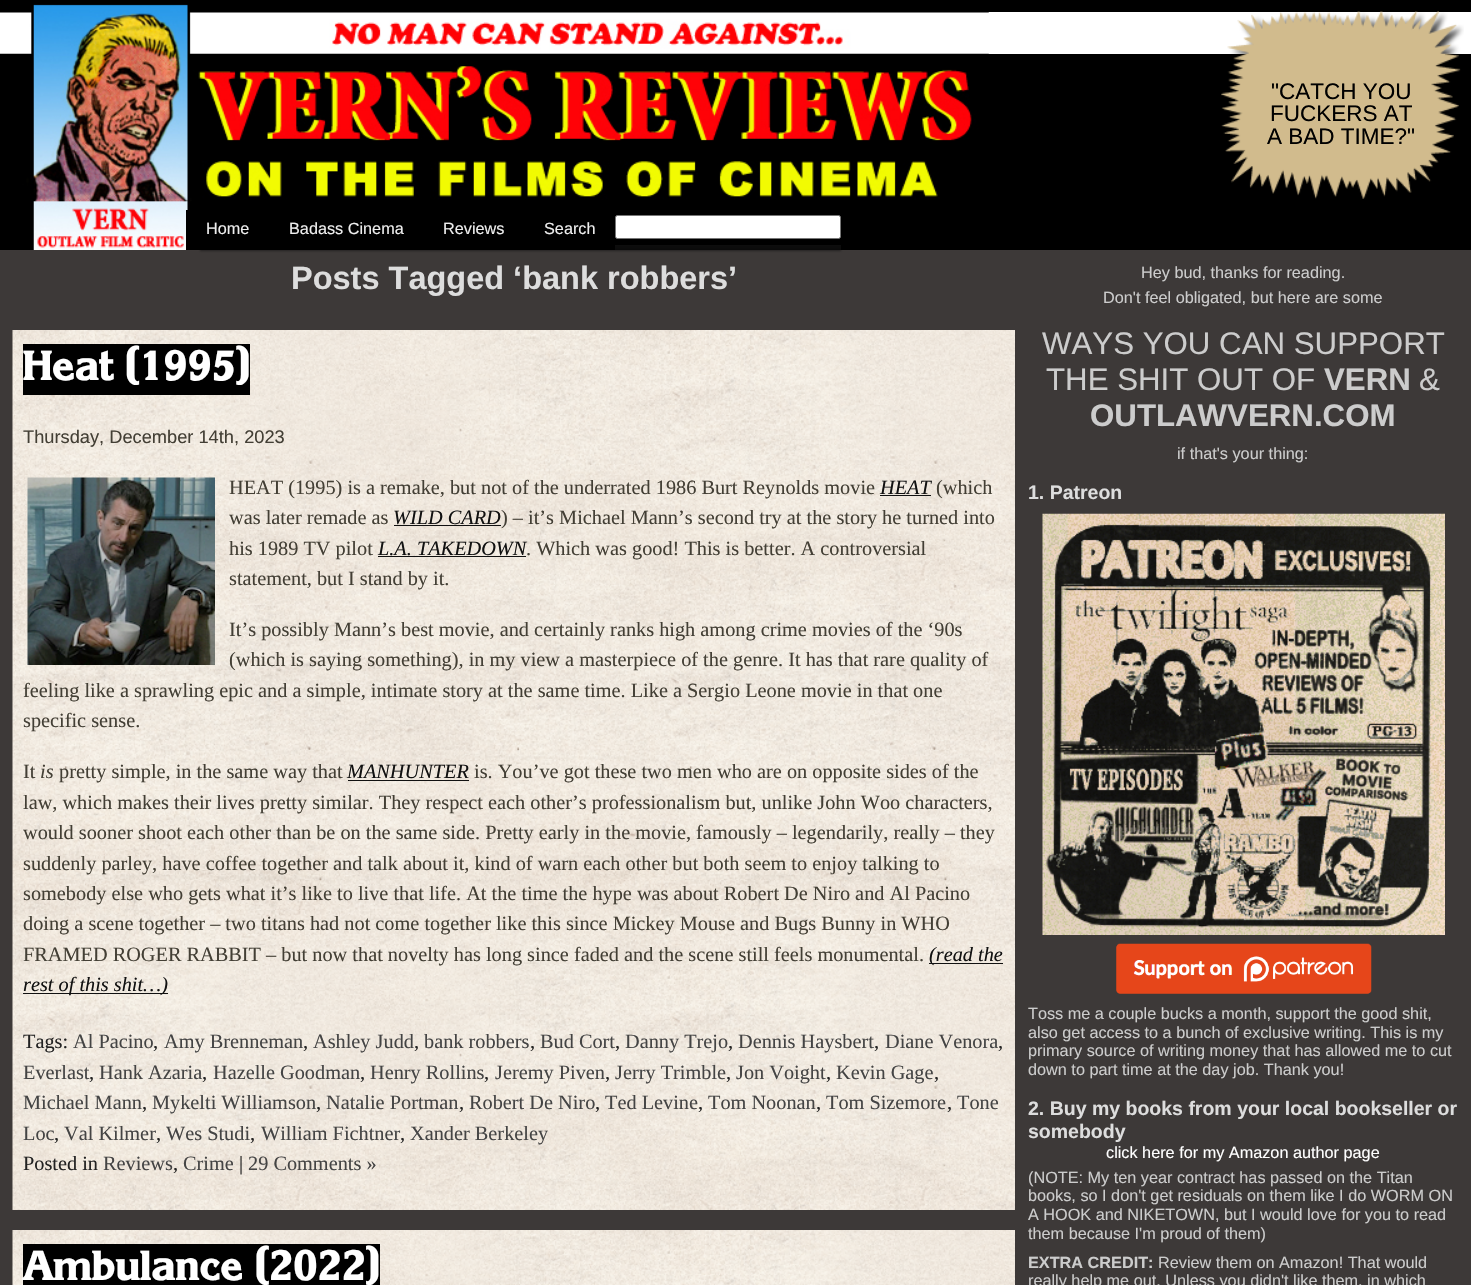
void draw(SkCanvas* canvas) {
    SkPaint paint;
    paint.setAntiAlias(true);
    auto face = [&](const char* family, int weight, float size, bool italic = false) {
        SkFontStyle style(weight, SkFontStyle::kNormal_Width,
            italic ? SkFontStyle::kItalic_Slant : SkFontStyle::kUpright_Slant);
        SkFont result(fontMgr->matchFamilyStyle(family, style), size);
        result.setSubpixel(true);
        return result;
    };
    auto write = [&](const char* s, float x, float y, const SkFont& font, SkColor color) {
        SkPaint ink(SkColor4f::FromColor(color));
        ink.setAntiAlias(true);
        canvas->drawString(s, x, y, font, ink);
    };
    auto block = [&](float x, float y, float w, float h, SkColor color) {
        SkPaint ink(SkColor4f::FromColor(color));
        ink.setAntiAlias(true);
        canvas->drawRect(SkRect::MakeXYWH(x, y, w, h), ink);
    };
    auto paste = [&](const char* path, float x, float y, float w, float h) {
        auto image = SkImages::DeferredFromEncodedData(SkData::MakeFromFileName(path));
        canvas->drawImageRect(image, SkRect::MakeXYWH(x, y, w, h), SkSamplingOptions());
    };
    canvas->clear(SkColorSetRGB(61, 57, 56));
    block(0, 0, 1471, 250, SK_ColorBLACK);
    block(988, 12, 483, 42, SK_ColorWHITE);
    paste("pic1.png", 0, 4, 989, 246);
    paste("pic2.png", 1221, 11, 243, 188);
    auto kFont1 = face("Liberation Sans", 400, 22.5f);
    write("\"CATCH YOU", 1271, 99, kFont1, SK_ColorBLACK);
    write("FUCKERS AT", 1270, 121, kFont1, SK_ColorBLACK);
    write("A BAD TIME?\"", 1267, 144, kFont1, SK_ColorBLACK);
    paint.setColor(SkColorSetARGB(102, 0, 0, 0));
    paint.setMaskFilter(SkMaskFilter::MakeBlur(kNormal_SkBlurStyle, 1));
    canvas->drawRect(SkRect::MakeXYWH(200, 211, 641, 40), paint);
    paint.setMaskFilter(nullptr);
    {
        const SkColor colors[] = {SkColorSetRGB(37, 37, 37), SkColorSetRGB(10, 10, 10)};
        const float stops[] = {0, 1};
        const SkPoint ends[] = {{521, 210}, {521, 250}};
        paint.setShader(SkGradientShader::MakeLinear(ends, colors, stops, 2, SkTileMode::kClamp));
        paint.setAlpha(255);
    }
    canvas->drawRect(SkRect::MakeXYWH(615, 245, 226, 5), paint);
    block(186, 210, 4, 40, SK_ColorBLACK);
    auto kFont2 = face("Liberation Sans", 400, 16.25f);
    write("Home", 206, 234, kFont2, SkColorSetRGB(238, 238, 238));
    write("Badass Cinema", 289, 234, kFont2, SkColorSetRGB(238, 238, 238));
    write("Reviews", 443, 234, kFont2, SkColorSetRGB(238, 238, 238));
    write("Search", 544, 234, kFont2, SkColorSetRGB(238, 238, 238));
    paint.setShader(nullptr);
    paint.setColor(SK_ColorWHITE);
    canvas->drawRoundRect(SkRect::MakeXYWH(615.5f, 215.5f, 225, 23), 2, 2, paint);
    paint.setStyle(SkPaint::kStroke_Style);
    paint.setStrokeWidth(1);
    paint.setColor(SkColorSetRGB(118, 118, 118));
    canvas->drawRoundRect(SkRect::MakeXYWH(615.5f, 215.5f, 225, 23), 2, 2, paint);
    auto kFont3 = face("Liberation Sans", 700, 32.5f);
    write("Posts Tagged ‘bank robbers’", 291, 289, kFont3, SkColorSetRGB(221, 221, 221));
    paste("pic3.png", 12, 330, 1003, 880);
    block(23, 344, 227, 51, SK_ColorBLACK);
    auto kFont4 = face("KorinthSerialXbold", 700, 40.6f);
    write("Heat (1995)", 23, 380, kFont4, SK_ColorWHITE);
    auto kFont5 = face("Liberation Sans", 400, 18.25f);
    write("Thursday, December 14th, 2023", 23, 443, kFont5, SkColorSetRGB(67, 63, 53));
    paste("pic4.png", 27, 477, 188, 188);
    auto kFont6 = face("Liberation Serif", 400, 20.3f);
    write("HEAT (1995) is a remake, but not of the underrated 1986 Burt Reynolds movie", 229, 494, kFont6, SkColorSetRGB(67, 63, 53));
    auto kFont7 = face("Liberation Serif", 400, 20.3f, true);
    write("HEAT", 880, 494, kFont7, SkColorSetRGB(17, 17, 17));
    block(880, 495, 51, 1, SkColorSetRGB(17, 17, 17));
    write("(which", 936, 494, kFont6, SkColorSetRGB(67, 63, 53));
    write("was later remade as", 229, 524, kFont6, SkColorSetRGB(67, 63, 53));
    write("WILD CARD", 393, 524, kFont7, SkColorSetRGB(17, 17, 17));
    block(394, 525, 107, 1, SkColorSetRGB(17, 17, 17));
    write(") – it’s Michael Mann’s second try at the story he turned into", 501, 524, kFont6, SkColorSetRGB(67, 63, 53));
    write("his 1989 TV pilot", 229, 555, kFont6, SkColorSetRGB(67, 63, 53));
    write("L.A. TAKEDOWN", 378, 555, kFont7, SkColorSetRGB(17, 17, 17));
    block(378, 556, 148, 1, SkColorSetRGB(17, 17, 17));
    write(". Which was good! This is better. A controversial", 526, 555, kFont6, SkColorSetRGB(67, 63, 53));
    write("statement, but I stand by it.", 229, 585, kFont6, SkColorSetRGB(67, 63, 53));
    write("It’s possibly Mann’s best movie, and certainly ranks high among crime movies of the ‘90s", 229, 636, kFont6, SkColorSetRGB(67, 63, 53));
    write("(which is saying something), in my view a masterpiece of the genre. It has that rare quality of", 229, 666, kFont6, SkColorSetRGB(67, 63, 53));
    write("feeling like a sprawling epic and a simple, intimate story at the same time. Like a Sergio Leone movie in that one", 23, 697, kFont6, SkColorSetRGB(67, 63, 53));
    write("specific sense.", 23, 727, kFont6, SkColorSetRGB(67, 63, 53));
    write("It", 23, 778, kFont6, SkColorSetRGB(67, 63, 53));
    write("is", 40, 778, kFont7, SkColorSetRGB(67, 63, 53));
    write("pretty simple, in the same way that", 59, 778, kFont6, SkColorSetRGB(67, 63, 53));
    write("MANHUNTER", 347, 778, kFont7, SkColorSetRGB(17, 17, 17));
    block(348, 780, 121, 1, SkColorSetRGB(17, 17, 17));
    write("is. You’ve got these two men who are on opposite sides of the", 474, 778, kFont6, SkColorSetRGB(67, 63, 53));
    write("law, which makes their lives pretty similar. They respect each other’s professionalism but, unlike John Woo characters,", 23, 809, kFont6, SkColorSetRGB(67, 63, 53));
    write("would sooner shoot each other than be on the same side. Pretty early in the movie, famously – legendarily, really – they", 23, 839, kFont6, SkColorSetRGB(67, 63, 53));
    write("suddenly parley, have coffee together and talk about it, kind of warn each other but both seem to enjoy talking to", 23, 870, kFont6, SkColorSetRGB(67, 63, 53));
    write("somebody else who gets what it’s like to live that life. At the time the hype was about Robert De Niro and Al Pacino", 23, 900, kFont6, SkColorSetRGB(67, 63, 53));
    write("doing a scene together – two titans had not come together like this since Mickey Mouse and Bugs Bunny in WHO", 23, 930, kFont6, SkColorSetRGB(67, 63, 53));
    write("FRAMED ROGER RABBIT – but now that novelty has long since faded and the scene still feels monumental.", 23, 961, kFont6, SkColorSetRGB(67, 63, 53));
    block(929, 963, 74, 1, SkColorSetRGB(17, 17, 17));
    write("(read the", 929, 961, kFont7, SkColorSetRGB(17, 17, 17));
    block(23, 993, 145, 1, SkColorSetRGB(17, 17, 17));
    write("rest of this shit…)", 23, 991, kFont7, SkColorSetRGB(17, 17, 17));
    write("Tags:", 23, 1048, kFont6, SkColorSetRGB(34, 34, 34));
    write("Al Pacino", 73, 1048, kFont6, SkColorSetRGB(68, 68, 68));
    write(",", 153, 1048, kFont6, SkColorSetRGB(34, 34, 34));
    write("Amy Brenneman", 164, 1048, kFont6, SkColorSetRGB(68, 68, 68));
    write(",", 303, 1048, kFont6, SkColorSetRGB(34, 34, 34));
    write("Ashley Judd", 313, 1048, kFont6, SkColorSetRGB(68, 68, 68));
    write(",", 414, 1048, kFont6, SkColorSetRGB(34, 34, 34));
    write("bank robbers", 424, 1048, kFont6, SkColorSetRGB(68, 68, 68));
    write(",", 530, 1048, kFont6, SkColorSetRGB(34, 34, 34));
    write("Bud Cort", 540, 1048, kFont6, SkColorSetRGB(68, 68, 68));
    write(",", 615, 1048, kFont6, SkColorSetRGB(34, 34, 34));
    write("Danny Trejo", 625, 1048, kFont6, SkColorSetRGB(68, 68, 68));
    write(",", 728, 1048, kFont6, SkColorSetRGB(34, 34, 34));
    write("Dennis Haysbert", 738, 1048, kFont6, SkColorSetRGB(68, 68, 68));
    write(",", 874, 1048, kFont6, SkColorSetRGB(34, 34, 34));
    write("Diane Venora", 885, 1048, kFont6, SkColorSetRGB(68, 68, 68));
    write(",", 998, 1048, kFont6, SkColorSetRGB(34, 34, 34));
    write("Everlast", 23, 1079, kFont6, SkColorSetRGB(68, 68, 68));
    write(",", 89, 1079, kFont6, SkColorSetRGB(34, 34, 34));
    write("Hank Azaria", 99, 1079, kFont6, SkColorSetRGB(68, 68, 68));
    write(",", 202, 1079, kFont6, SkColorSetRGB(34, 34, 34));
    write("Hazelle Goodman", 213, 1079, kFont6, SkColorSetRGB(68, 68, 68));
    write(",", 360, 1079, kFont6, SkColorSetRGB(34, 34, 34));
    write("Henry Rollins", 370, 1079, kFont6, SkColorSetRGB(68, 68, 68));
    write(",", 484, 1079, kFont6, SkColorSetRGB(34, 34, 34));
    write("Jeremy Piven", 495, 1079, kFont6, SkColorSetRGB(68, 68, 68));
    write(",", 605, 1079, kFont6, SkColorSetRGB(34, 34, 34));
    write("Jerry Trimble", 615, 1079, kFont6, SkColorSetRGB(68, 68, 68));
    write(",", 726, 1079, kFont6, SkColorSetRGB(34, 34, 34));
    write("Jon Voight", 736, 1079, kFont6, SkColorSetRGB(68, 68, 68));
    write(",", 826, 1079, kFont6, SkColorSetRGB(34, 34, 34));
    write("Kevin Gage", 836, 1079, kFont6, SkColorSetRGB(68, 68, 68));
    write(",", 934, 1079, kFont6, SkColorSetRGB(34, 34, 34));
    write("Michael Mann", 23, 1109, kFont6, SkColorSetRGB(68, 68, 68));
    write(",", 142, 1109, kFont6, SkColorSetRGB(34, 34, 34));
    write("Mykelti Williamson", 152, 1109, kFont6, SkColorSetRGB(68, 68, 68));
    write(",", 316, 1109, kFont6, SkColorSetRGB(34, 34, 34));
    write("Natalie Portman", 326, 1109, kFont6, SkColorSetRGB(68, 68, 68));
    write(",", 459, 1109, kFont6, SkColorSetRGB(34, 34, 34));
    write("Robert De Niro", 469, 1109, kFont6, SkColorSetRGB(68, 68, 68));
    write(",", 595, 1109, kFont6, SkColorSetRGB(34, 34, 34));
    write("Ted Levine", 605, 1109, kFont6, SkColorSetRGB(68, 68, 68));
    write(",", 698, 1109, kFont6, SkColorSetRGB(34, 34, 34));
    write("Tom Noonan", 708, 1109, kFont6, SkColorSetRGB(68, 68, 68));
    write(",", 816, 1109, kFont6, SkColorSetRGB(34, 34, 34));
    write("Tom Sizemore", 826, 1109, kFont6, SkColorSetRGB(68, 68, 68));
    write(",", 947, 1109, kFont6, SkColorSetRGB(34, 34, 34));
    write("Tone", 957, 1109, kFont6, SkColorSetRGB(68, 68, 68));
    write("Loc", 23, 1140, kFont6, SkColorSetRGB(68, 68, 68));
    write(",", 54, 1140, kFont6, SkColorSetRGB(34, 34, 34));
    write("Val Kilmer", 64, 1140, kFont6, SkColorSetRGB(68, 68, 68));
    write(",", 156, 1140, kFont6, SkColorSetRGB(34, 34, 34));
    write("Wes Studi", 166, 1140, kFont6, SkColorSetRGB(68, 68, 68));
    write(",", 250, 1140, kFont6, SkColorSetRGB(34, 34, 34));
    write("William Fichtner", 261, 1140, kFont6, SkColorSetRGB(68, 68, 68));
    write(",", 400, 1140, kFont6, SkColorSetRGB(34, 34, 34));
    write("Xander Berkeley", 410, 1140, kFont6, SkColorSetRGB(68, 68, 68));
    write("Posted in", 23, 1170, kFont6, SkColorSetRGB(34, 34, 34));
    write("Reviews", 103, 1170, kFont6, SkColorSetRGB(68, 68, 68));
    write(",", 173, 1170, kFont6, SkColorSetRGB(34, 34, 34));
    write("Crime", 183, 1170, kFont6, SkColorSetRGB(68, 68, 68));
    write("|", 239, 1170, kFont6, SkColorSetRGB(34, 34, 34));
    write("29 Comments »", 248, 1170, kFont6, SkColorSetRGB(68, 68, 68));
    paste("pic5.png", 12, 1230, 1003, 55);
    block(23, 1244, 357, 41, SK_ColorBLACK);
    write("Ambulance (2022)", 23, 1280, kFont4, SK_ColorWHITE);
    write("Hey bud, thanks for reading.", 1141, 278, kFont2, SkColorSetRGB(204, 204, 204));
    write("Don't feel obligated, but here are some", 1103, 303, kFont2, SkColorSetRGB(204, 204, 204));
    auto kFont8 = face("Liberation Sans", 400, 31.25f);
    write("WAYS YOU CAN SUPPORT", 1042, 354, kFont8, SkColorSetRGB(204, 204, 204));
    write("THE SHIT OUT OF", 1046, 390, kFont8, SkColorSetRGB(204, 204, 204));
    auto kFont9 = face("Liberation Sans", 700, 31.25f);
    write("VERN", 1324, 390, kFont9, SkColorSetRGB(204, 204, 204));
    write("&", 1419, 390, kFont8, SkColorSetRGB(204, 204, 204));
    write("OUTLAWVERN.COM", 1090, 426, kFont9, SkColorSetRGB(204, 204, 204));
    write("if that's your thing:", 1177, 459, kFont2, SkColorSetRGB(204, 204, 204));
    auto kFont10 = face("Liberation Sans", 700, 19.5f);
    write("1. Patreon", 1028, 499, kFont10, SkColorSetRGB(221, 221, 221));
    paste("pic6.png", 1042, 513, 403, 422);
    paste("pic7.png", 1116, 943, 256, 51);
    write("Toss me a couple bucks a month, support the good shit,", 1028, 1019, kFont2, SkColorSetRGB(204, 204, 204));
    write("also get access to a bunch of exclusive writing. This is my", 1028, 1038, kFont2, SkColorSetRGB(204, 204, 204));
    write("primary source of writing money that has allowed me to cut", 1028, 1056, kFont2, SkColorSetRGB(204, 204, 204));
    write("down to part time at the day job. Thank you!", 1028, 1075, kFont2, SkColorSetRGB(204, 204, 204));
    write("2. Buy my books from your local bookseller or", 1028, 1115, kFont10, SkColorSetRGB(221, 221, 221));
    write("somebody", 1028, 1138, kFont10, SkColorSetRGB(221, 221, 221));
    write("click here for my Amazon author page", 1106, 1158, kFont2, SK_ColorWHITE);
    write("(NOTE: My ten year contract has passed on the Titan", 1028, 1183, kFont2, SkColorSetRGB(204, 204, 204));
    write("books, so I don't get residuals on them like I do WORM ON", 1028, 1201, kFont2, SkColorSetRGB(204, 204, 204));
    write("A HOOK and NIKETOWN, but I would love for you to read", 1028, 1220, kFont2, SkColorSetRGB(204, 204, 204));
    write("them because I'm proud of them)", 1028, 1239, kFont2, SkColorSetRGB(204, 204, 204));
    auto kFont11 = face("Liberation Sans", 700, 16.25f);
    write("EXTRA CREDIT:", 1028, 1268, kFont11, SkColorSetRGB(204, 204, 204));
    write("Review them on Amazon! That would", 1158, 1268, kFont2, SkColorSetRGB(204, 204, 204));
    write("really help me out. Unless you didn't like them, in which", 1028, 1286, kFont2, SkColorSetRGB(204, 204, 204));
}
